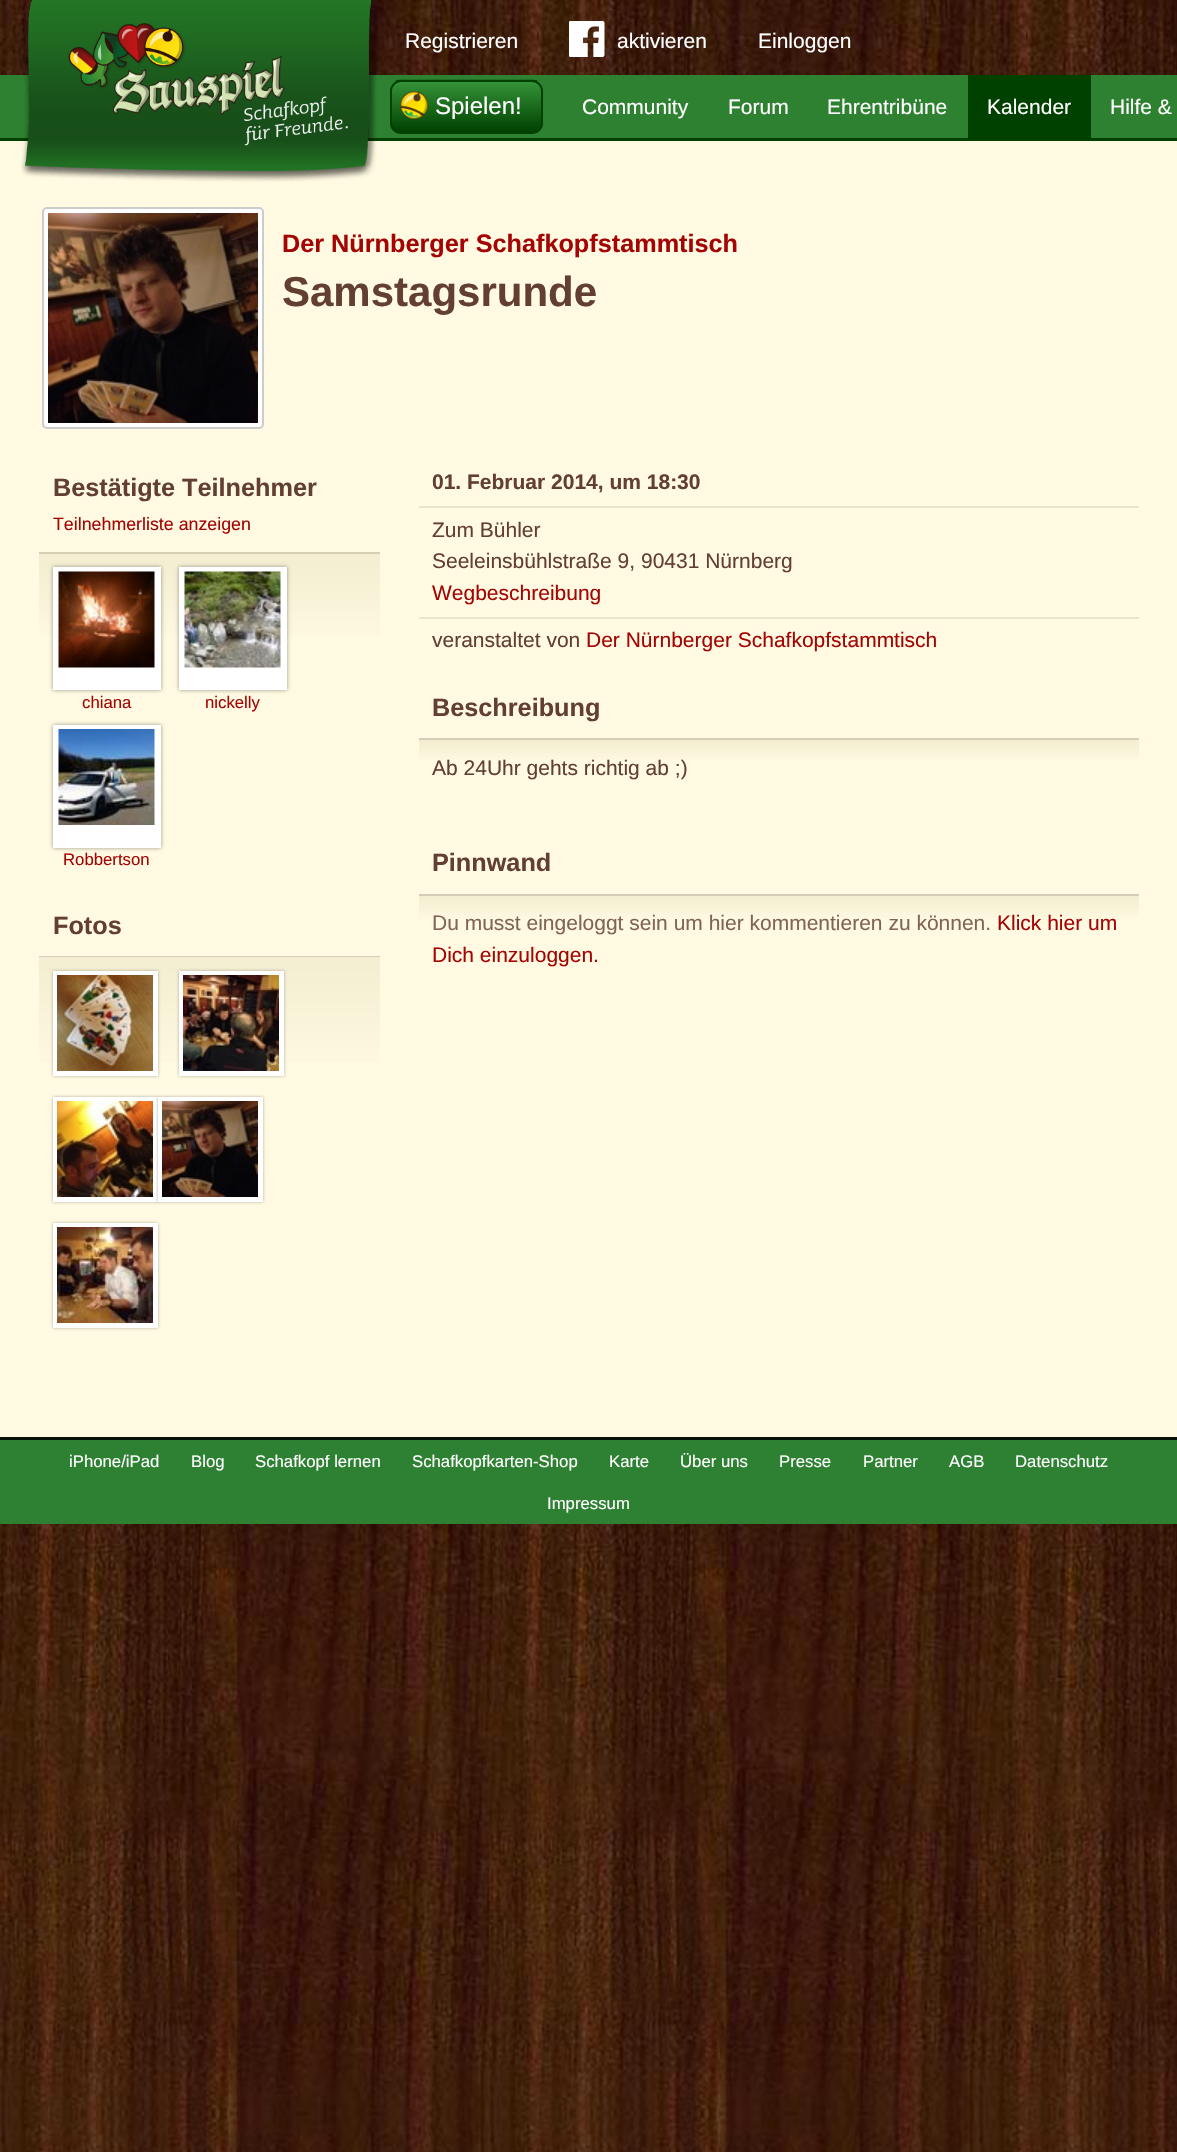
void draw(SkCanvas* canvas) {
    SkPaint paint;
    paint.setAntiAlias(true);
    auto face = [&](const char* family, int weight, float size, bool italic = false) {
        SkFontStyle style(weight, SkFontStyle::kNormal_Width,
            italic ? SkFontStyle::kItalic_Slant : SkFontStyle::kUpright_Slant);
        SkFont result(fontMgr->matchFamilyStyle(family, style), size);
        result.setSubpixel(true);
        return result;
    };
    auto write = [&](const char* s, float x, float y, const SkFont& font, SkColor color) {
        SkPaint ink(SkColor4f::FromColor(color));
        ink.setAntiAlias(true);
        canvas->drawString(s, x, y, font, ink);
    };
    auto block = [&](float x, float y, float w, float h, SkColor color) {
        SkPaint ink(SkColor4f::FromColor(color));
        ink.setAntiAlias(true);
        canvas->drawRect(SkRect::MakeXYWH(x, y, w, h), ink);
    };
    auto card = [&](float x, float y, float w, float h, float radius, SkColor color) {
        SkPaint ink(SkColor4f::FromColor(color));
        ink.setAntiAlias(true);
        canvas->drawRoundRect(SkRect::MakeXYWH(x, y, w, h), radius, radius, ink);
    };
    auto paste = [&](const char* path, float x, float y, float w, float h) {
        auto image = SkImages::DeferredFromEncodedData(SkData::MakeFromFileName(path));
        canvas->drawImageRect(image, SkRect::MakeXYWH(x, y, w, h), SkSamplingOptions());
    };
    canvas->clear(SK_ColorWHITE);
    paste("pic1.png", 0, 0, 1177, 2152);
    block(0, 75, 1177, 63, SkColorSetRGB(46, 129, 48));
    block(0, 138, 1177, 3, SkColorSetRGB(0, 65, 0));
    block(0, 141, 1177, 1296, SkColorSetRGB(255, 250, 225));
    paste("pic2.png", 21, 0, 356, 182);
    auto kFont1 = face("Liberation Sans", 400, 21);
    write("Registrieren", 405, 48, kFont1, SK_ColorWHITE);
    paste("pic3.png", 569, 21, 36, 36);
    write("aktivieren", 617, 48, kFont1, SK_ColorWHITE);
    write("Einloggen", 758, 48, kFont1, SK_ColorWHITE);
    paste("pic4.png", 390, 79, 153, 54);
    paint.setStyle(SkPaint::kStroke_Style);
    paint.setStrokeWidth(2);
    paint.setColor(SkColorSetRGB(0, 65, 0));
    canvas->drawRoundRect(SkRect::MakeXYWH(391, 81, 151, 52), 10, 10, paint);
    auto kFont2 = face("Liberation Sans", 400, 24);
    write("Spielen!", 435, 114, kFont2, SK_ColorWHITE);
    write("Community", 582, 114, kFont1, SK_ColorWHITE);
    write("Forum", 728, 114, kFont1, SK_ColorWHITE);
    write("Ehrentribüne", 827, 114, kFont1, SK_ColorWHITE);
    block(968, 75, 123, 63, SkColorSetRGB(0, 65, 0));
    write("Kalender", 987, 114, kFont1, SK_ColorWHITE);
    write("Hilfe &", 1110, 114, kFont1, SK_ColorWHITE);
    card(42, 207, 222, 222, 5, SK_ColorWHITE);
    paint.setColor(SkColorSetARGB(51, 0, 0, 0));
    canvas->drawRoundRect(SkRect::MakeXYWH(43, 208, 220, 220), 4, 4, paint);
    paste("pic5.png", 48, 213, 210, 210);
    auto kFont3 = face("Liberation Sans", 700, 25.25f);
    write("Der Nürnberger Schafkopfstammtisch", 282, 252, kFont3, SkColorSetRGB(164, 4, 4));
    auto kFont4 = face("Liberation Sans", 700, 42);
    write("Samstagsrunde", 282, 306, kFont4, SkColorSetRGB(99, 63, 47));
    block(39, 552, 341, 2, SkColorSetRGB(213, 206, 180));
    write("Bestätigte Teilnehmer", 53, 496, kFont3, SkColorSetRGB(99, 63, 47));
    auto kFont5 = face("Liberation Sans", 400, 17.8f);
    write("Teilnehmerliste anzeigen", 53, 530, kFont5, SkColorSetRGB(164, 4, 4));
    paint.setStyle(SkPaint::kFill_Style);
    {
        const SkColor colors[] = {SkColorSetRGB(243, 237, 209), SkColorSetRGB(255, 250, 225)};
        const float stops[] = {0, 0.3f};
        const SkPoint ends[] = {{209, 554}, {209, 882}};
        paint.setShader(SkGradientShader::MakeLinear(ends, colors, stops, 2, SkTileMode::kClamp));
        paint.setAlpha(255);
    }
    canvas->drawRect(SkRect::MakeXYWH(39, 554, 341, 83), paint);
    paint.setShader(nullptr);
    paint.setColor(SkColorSetARGB(102, 0, 0, 0));
    paint.setMaskFilter(SkMaskFilter::MakeBlur(kNormal_SkBlurStyle, 2));
    canvas->drawRect(SkRect::MakeXYWH(53, 567, 108, 123), paint);
    paint.setMaskFilter(nullptr);
    block(53, 567, 108, 123, SK_ColorWHITE);
    paste("pic6.png", 58, 571, 97, 97);
    auto kFont6 = face("Liberation Sans", 400, 16.75f);
    write("chiana", 82, 708, kFont6, SkColorSetRGB(164, 4, 4));
    paint.setMaskFilter(SkMaskFilter::MakeBlur(kNormal_SkBlurStyle, 2));
    canvas->drawRect(SkRect::MakeXYWH(179, 567, 108, 123), paint);
    paint.setMaskFilter(nullptr);
    block(179, 567, 108, 123, SK_ColorWHITE);
    paste("pic7.png", 184, 571, 97, 97);
    write("nickelly", 205, 708, kFont6, SkColorSetRGB(164, 4, 4));
    paint.setMaskFilter(SkMaskFilter::MakeBlur(kNormal_SkBlurStyle, 2));
    canvas->drawRect(SkRect::MakeXYWH(53, 725, 108, 123), paint);
    paint.setMaskFilter(nullptr);
    block(53, 725, 108, 123, SK_ColorWHITE);
    paste("pic8.png", 58, 729, 97, 96);
    write("Robbertson", 63, 865, kFont6, SkColorSetRGB(164, 4, 4));
    block(39, 956, 341, 1, SkColorSetRGB(213, 206, 180));
    write("Fotos", 53, 934, kFont3, SkColorSetRGB(99, 63, 47));
    {
        const SkColor colors[] = {SkColorSetRGB(243, 237, 209), SkColorSetARGB(0, 243, 237, 209)};
        const float stops[] = {0, 0.3f};
        const SkPoint ends[] = {{209, 957}, {209, 1362}};
        paint.setShader(SkGradientShader::MakeLinear(ends, colors, stops, 2, SkTileMode::kClamp));
        paint.setAlpha(255);
    }
    canvas->drawRect(SkRect::MakeXYWH(39, 957, 341, 105), paint);
    paint.setShader(nullptr);
    paint.setColor(SkColorSetARGB(77, 0, 0, 0));
    paint.setMaskFilter(SkMaskFilter::MakeBlur(kNormal_SkBlurStyle, 1.5f));
    canvas->drawRect(SkRect::MakeXYWH(53, 971, 105, 105), paint);
    paint.setMaskFilter(nullptr);
    paint.setStyle(SkPaint::kStroke_Style);
    paint.setStrokeWidth(5);
    paint.setColor(SK_ColorWHITE);
    canvas->drawRect(SkRect::MakeXYWH(55.5f, 973.5f, 100, 100), paint);
    paste("pic9.png", 57, 975, 96, 96);
    paint.setStyle(SkPaint::kFill_Style);
    paint.setColor(SkColorSetARGB(77, 0, 0, 0));
    paint.setMaskFilter(SkMaskFilter::MakeBlur(kNormal_SkBlurStyle, 1.5f));
    canvas->drawRect(SkRect::MakeXYWH(179, 971, 105, 105), paint);
    paint.setMaskFilter(nullptr);
    paint.setStyle(SkPaint::kStroke_Style);
    paint.setColor(SK_ColorWHITE);
    canvas->drawRect(SkRect::MakeXYWH(181.5f, 973.5f, 100, 100), paint);
    paste("pic10.png", 183, 975, 96, 96);
    paint.setStyle(SkPaint::kFill_Style);
    paint.setColor(SkColorSetARGB(77, 0, 0, 0));
    paint.setMaskFilter(SkMaskFilter::MakeBlur(kNormal_SkBlurStyle, 1.5f));
    canvas->drawRect(SkRect::MakeXYWH(53, 1097, 105, 105), paint);
    paint.setMaskFilter(nullptr);
    paint.setStyle(SkPaint::kStroke_Style);
    paint.setColor(SK_ColorWHITE);
    canvas->drawRect(SkRect::MakeXYWH(55.5f, 1099.5f, 100, 100), paint);
    paste("pic11.png", 57, 1101, 96, 96);
    paint.setStyle(SkPaint::kFill_Style);
    paint.setColor(SkColorSetARGB(77, 0, 0, 0));
    paint.setMaskFilter(SkMaskFilter::MakeBlur(kNormal_SkBlurStyle, 1.5f));
    canvas->drawRect(SkRect::MakeXYWH(158, 1097, 105, 105), paint);
    paint.setMaskFilter(nullptr);
    paint.setStyle(SkPaint::kStroke_Style);
    paint.setColor(SK_ColorWHITE);
    canvas->drawRect(SkRect::MakeXYWH(160.5f, 1099.5f, 100, 100), paint);
    paste("pic12.png", 162, 1101, 96, 96);
    paint.setStyle(SkPaint::kFill_Style);
    paint.setColor(SkColorSetARGB(77, 0, 0, 0));
    paint.setMaskFilter(SkMaskFilter::MakeBlur(kNormal_SkBlurStyle, 1.5f));
    canvas->drawRect(SkRect::MakeXYWH(53, 1223, 105, 105), paint);
    paint.setMaskFilter(nullptr);
    paint.setStyle(SkPaint::kStroke_Style);
    paint.setColor(SK_ColorWHITE);
    canvas->drawRect(SkRect::MakeXYWH(55.5f, 1225.5f, 100, 100), paint);
    paste("pic13.png", 57, 1227, 96, 96);
    block(419, 506, 720, 2, SkColorSetRGB(234, 228, 203));
    auto kFont7 = face("Liberation Sans", 700, 21);
    write("01. Februar 2014, um 18:30", 432, 489, kFont7, SkColorSetRGB(99, 63, 47));
    block(419, 617, 720, 2, SkColorSetRGB(234, 228, 203));
    write("Zum Bühler", 432, 537, kFont1, SkColorSetRGB(99, 63, 47));
    write("Seeleinsbühlstraße 9, 90431 Nürnberg", 432, 568, kFont1, SkColorSetRGB(99, 63, 47));
    write("Wegbeschreibung", 432, 600, kFont1, SkColorSetRGB(164, 4, 4));
    write("veranstaltet von", 432, 647, kFont1, SkColorSetRGB(99, 63, 47));
    write("Der Nürnberger Schafkopfstammtisch", 586, 647, kFont1, SkColorSetRGB(164, 4, 4));
    block(419, 738, 720, 2, SkColorSetRGB(213, 206, 180));
    write("Beschreibung", 432, 716, kFont3, SkColorSetRGB(99, 63, 47));
    paint.setStyle(SkPaint::kFill_Style);
    {
        const SkColor colors[] = {SkColorSetRGB(243, 237, 209), SkColorSetRGB(255, 250, 225)};
        const float stops[] = {0, 0.3f};
        const SkPoint ends[] = {{779, 740}, {779, 819}};
        paint.setShader(SkGradientShader::MakeLinear(ends, colors, stops, 2, SkTileMode::kClamp));
        paint.setAlpha(255);
    }
    canvas->drawRect(SkRect::MakeXYWH(419, 740, 720, 20), paint);
    write("Ab 24Uhr gehts richtig ab ;)", 432, 775, kFont1, SkColorSetRGB(99, 63, 47));
    block(419, 894, 720, 2, SkColorSetRGB(213, 206, 180));
    write("Pinnwand", 432, 871, kFont3, SkColorSetRGB(99, 63, 47));
    {
        const SkColor colors[] = {SkColorSetRGB(243, 237, 209), SkColorSetRGB(255, 250, 225)};
        const float stops[] = {0, 0.3f};
        const SkPoint ends[] = {{779, 896}, {779, 984}};
        paint.setShader(SkGradientShader::MakeLinear(ends, colors, stops, 2, SkTileMode::kClamp));
        paint.setAlpha(255);
    }
    canvas->drawRect(SkRect::MakeXYWH(419, 896, 720, 22), paint);
    write("Du musst eingeloggt sein um hier kommentieren zu können.", 432, 930, kFont1, SkColorSetRGB(130, 100, 82));
    write("Klick hier um", 997, 930, kFont1, SkColorSetRGB(164, 4, 4));
    write("Dich einzuloggen.", 432, 962, kFont1, SkColorSetRGB(164, 4, 4));
    block(0, 1440, 1177, 84, SkColorSetRGB(46, 129, 50));
    block(0, 1437, 1177, 3, SkColorSetRGB(6, 16, 6));
    write("iPhone/iPad", 69, 1467, kFont6, SK_ColorWHITE);
    write("Blog", 191, 1467, kFont6, SK_ColorWHITE);
    write("Schafkopf lernen", 255, 1467, kFont6, SK_ColorWHITE);
    write("Schafkopfkarten-Shop", 412, 1467, kFont6, SK_ColorWHITE);
    write("Karte", 609, 1467, kFont6, SK_ColorWHITE);
    write("Über uns", 680, 1467, kFont6, SK_ColorWHITE);
    write("Presse", 779, 1467, kFont6, SK_ColorWHITE);
    write("Partner", 863, 1467, kFont6, SK_ColorWHITE);
    write("AGB", 949, 1467, kFont6, SK_ColorWHITE);
    write("Datenschutz", 1015, 1467, kFont6, SK_ColorWHITE);
    write("Impressum", 547, 1509, kFont6, SK_ColorWHITE);
}
